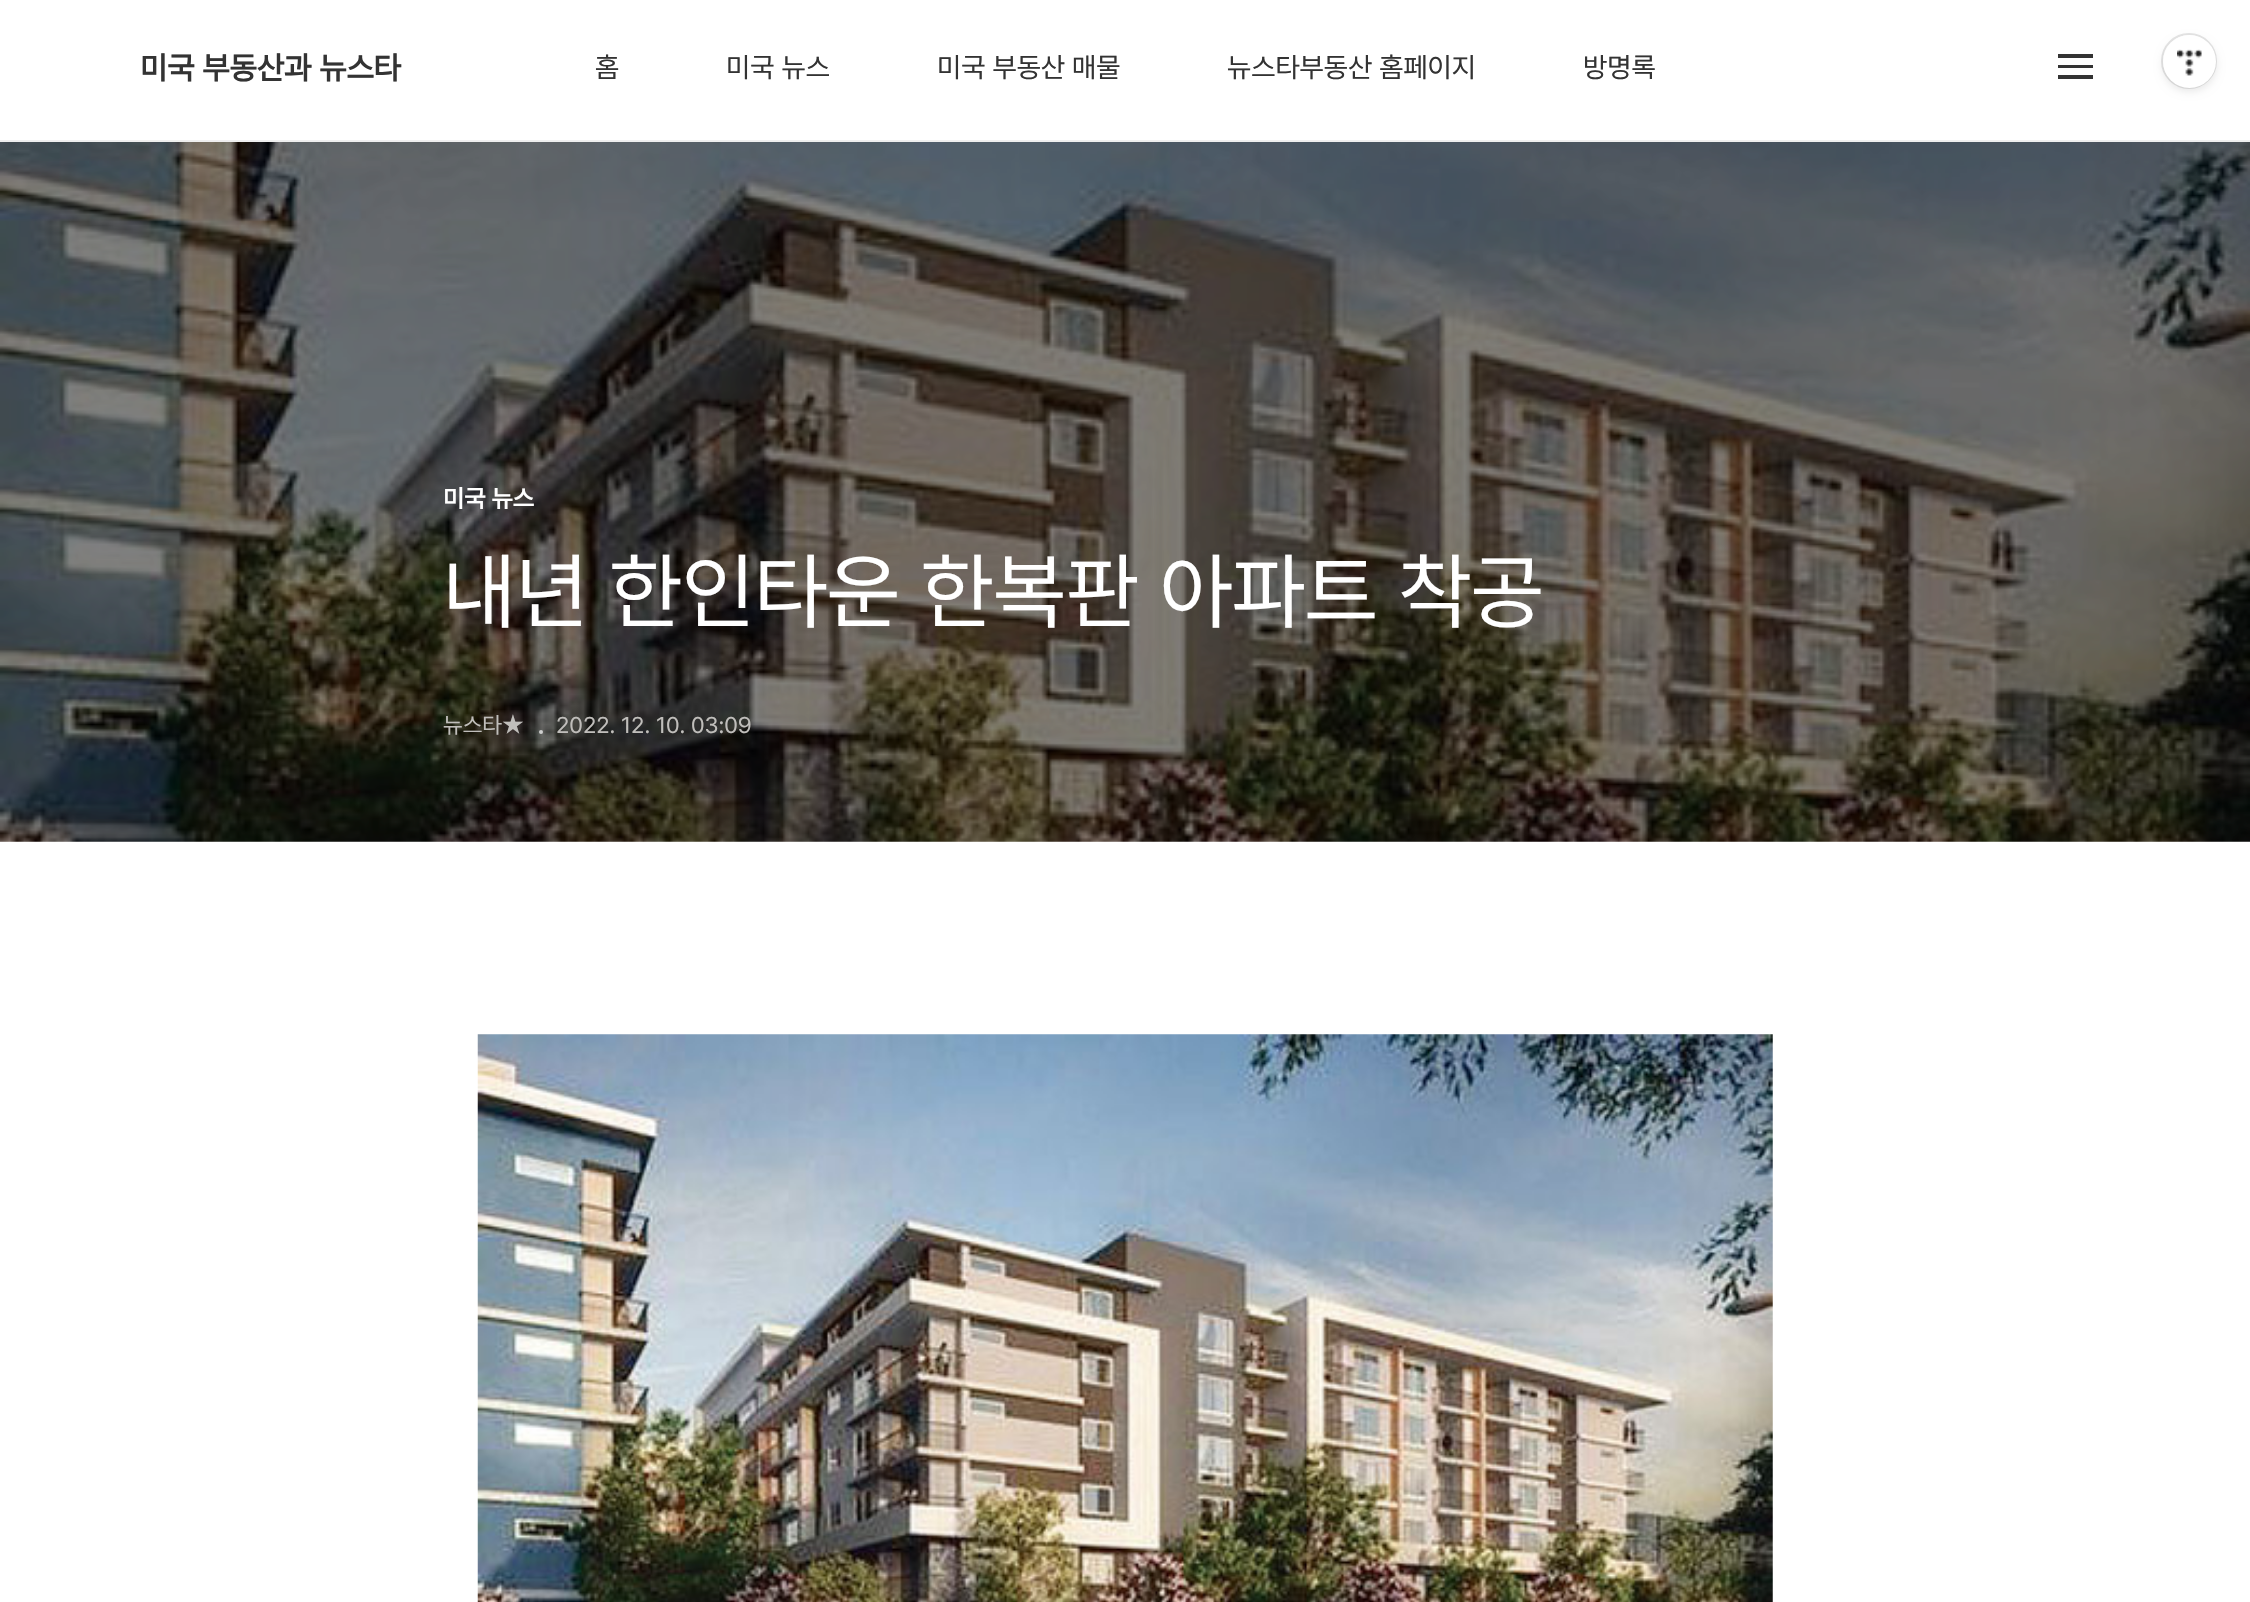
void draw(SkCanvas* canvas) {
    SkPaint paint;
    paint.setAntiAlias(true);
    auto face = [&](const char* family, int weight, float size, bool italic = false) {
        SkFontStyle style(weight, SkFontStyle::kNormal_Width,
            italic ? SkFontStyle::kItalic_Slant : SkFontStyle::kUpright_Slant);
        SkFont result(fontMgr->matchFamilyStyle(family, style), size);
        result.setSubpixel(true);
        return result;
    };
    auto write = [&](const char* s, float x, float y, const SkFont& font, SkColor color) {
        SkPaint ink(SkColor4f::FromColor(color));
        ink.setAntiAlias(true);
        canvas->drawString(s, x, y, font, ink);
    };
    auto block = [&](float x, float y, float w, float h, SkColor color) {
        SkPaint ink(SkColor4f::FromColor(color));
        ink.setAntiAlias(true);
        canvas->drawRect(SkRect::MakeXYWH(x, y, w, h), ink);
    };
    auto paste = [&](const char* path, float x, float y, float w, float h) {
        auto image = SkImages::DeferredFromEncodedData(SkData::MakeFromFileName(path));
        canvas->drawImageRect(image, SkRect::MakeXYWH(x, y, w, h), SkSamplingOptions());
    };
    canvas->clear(SK_ColorWHITE);
    block(0, 140, 2250, 2, SkColorSetRGB(239, 239, 239));
    auto kFont1 = face("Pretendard", 700, 31.5f);
    write("미국 부동산과 뉴스타", 140, 79, kFont1, SkColorSetRGB(51, 51, 51));
    auto kFont2 = face("Pretendard", 400, 28);
    write("홈", 595, 77, kFont2, SkColorSetRGB(51, 51, 51));
    write("미국 뉴스", 726, 77, kFont2, SkColorSetRGB(51, 51, 51));
    write("미국 부동산 매물", 937, 77, kFont2, SkColorSetRGB(51, 51, 51));
    write("뉴스타부동산 홈페이지", 1227, 77, kFont2, SkColorSetRGB(51, 51, 51));
    write("방명록", 1583, 77, kFont2, SkColorSetRGB(51, 51, 51));
    paint.setColor(SkColorSetRGB(51, 51, 51));
    canvas->drawPath(SkPathBuilder(SkPathFillType::kEvenOdd).moveTo(2058, 54).lineTo(2093, 54).lineTo(2093, 58).lineTo(2058, 58).close().moveTo(2058, 65).lineTo(2093, 65).lineTo(2093, 68).lineTo(2058, 68).close().moveTo(2058, 75).lineTo(2093, 75).lineTo(2093, 79).lineTo(2058, 79).close().detach(), paint);
    paste("pic1.png", 0, 142, 2250, 700);
    auto kFont3 = face("Pretendard", 700, 24.5f);
    write("미국 뉴스", 443, 507, kFont3, SK_ColorWHITE);
    auto kFont4 = face("Pretendard", 400, 84);
    write("내년 한인타운 한복판 아파트 착공", 443, 621, kFont4, SK_ColorWHITE);
    auto kFont5 = face("Pretendard", 400, 22.75f);
    write("뉴스타★", 443, 733, kFont5, SkColorSetRGB(192, 190, 187));
    paint.setColor(SkColorSetARGB(179, 255, 255, 255));
    canvas->drawCircle(541, 732, 2, paint);
    write("2022. 12. 10. 03:09", 556, 733, kFont5, SkColorSetRGB(192, 190, 187));
    paste("pic2.png", 477, 1034, 1296, 568);
    paint.setColor(SkColorSetARGB(26, 0, 0, 0));
    paint.setMaskFilter(SkMaskFilter::MakeBlur(kNormal_SkBlurStyle, 4.5f));
    canvas->drawRoundRect(SkRect::MakeXYWH(2163, 39, 53, 52), 26, 26, paint);
    paint.setMaskFilter(nullptr);
    paint.setStyle(SkPaint::kStroke_Style);
    paint.setStrokeWidth(2);
    canvas->drawCircle(2189, 61, 27, paint);
    paint.setStyle(SkPaint::kFill_Style);
    paint.setColor(SK_ColorWHITE);
    canvas->drawCircle(2189.5f, 61.5f, 26.5f, paint);
    paste("pic3.png", 2177, 49, 25, 27);
}
